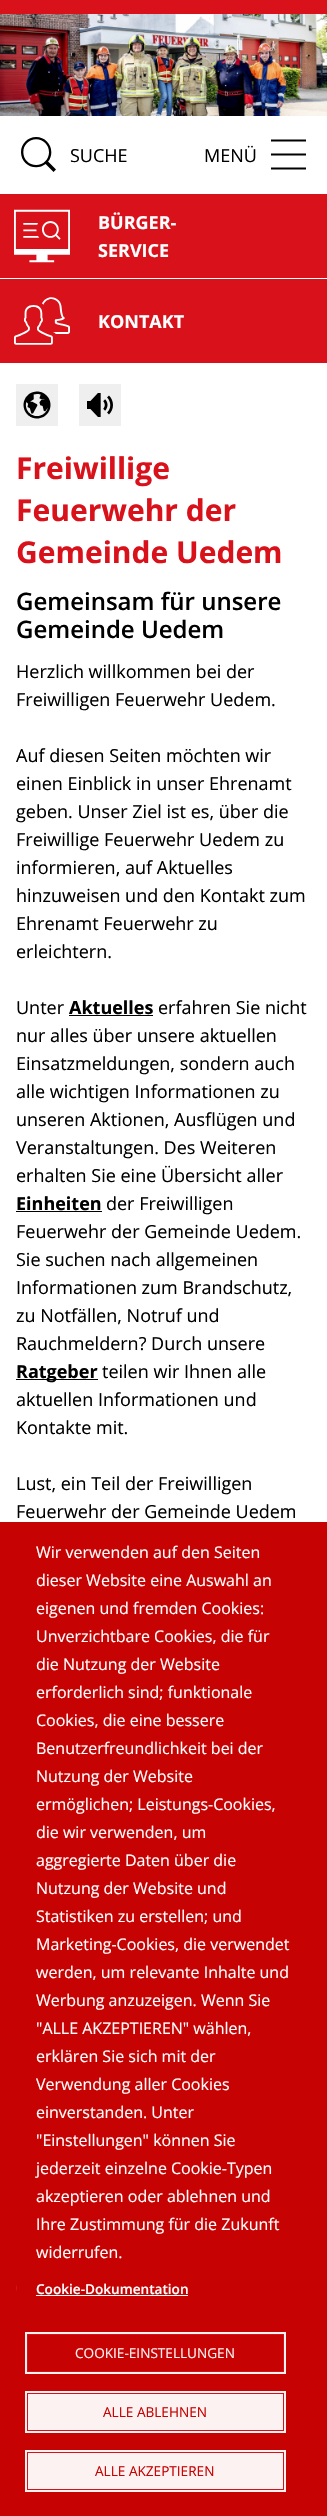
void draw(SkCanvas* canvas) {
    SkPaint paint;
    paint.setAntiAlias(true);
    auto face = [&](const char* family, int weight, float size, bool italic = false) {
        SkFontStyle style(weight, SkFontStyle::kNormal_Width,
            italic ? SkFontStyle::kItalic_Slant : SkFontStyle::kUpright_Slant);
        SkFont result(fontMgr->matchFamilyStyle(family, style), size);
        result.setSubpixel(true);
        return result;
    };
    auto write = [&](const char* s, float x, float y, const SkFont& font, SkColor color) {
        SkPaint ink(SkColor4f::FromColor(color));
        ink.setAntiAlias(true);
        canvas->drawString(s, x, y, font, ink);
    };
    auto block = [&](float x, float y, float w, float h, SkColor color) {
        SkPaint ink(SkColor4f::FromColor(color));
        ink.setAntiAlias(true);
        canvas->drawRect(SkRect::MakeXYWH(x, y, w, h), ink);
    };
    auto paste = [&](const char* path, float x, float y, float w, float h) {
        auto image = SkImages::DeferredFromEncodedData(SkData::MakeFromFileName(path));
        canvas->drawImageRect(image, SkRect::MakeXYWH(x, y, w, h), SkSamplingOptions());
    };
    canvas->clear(SkColorSetRGB(217, 17, 27));
    block(0, 116, 327, 78, SK_ColorWHITE);
    paste("pic1.png", 0, 14, 327, 102);
    paste("pic2.png", 21, 137, 35, 35);
    auto kFont1 = face("Open Sans", 400, 18);
    write("SUCHE", 70, 162, kFont1, SK_ColorBLACK);
    write("MENÜ", 204, 162, kFont1, SK_ColorBLACK);
    paste("pic3.png", 271, 139, 35, 31);
    paste("pic4.png", 14, 209, 56, 54);
    auto kFont2 = face("Open Sans", 700, 18);
    write("BÜRGER-", 98, 229, kFont2, SK_ColorWHITE);
    write("SERVICE", 98, 257, kFont2, SK_ColorWHITE);
    block(0, 278, 327, 1, SK_ColorWHITE);
    paste("pic5.png", 14, 297, 56, 48);
    write("KONTAKT", 98, 328, kFont2, SK_ColorWHITE);
    block(0, 363, 327, 1159, SK_ColorWHITE);
    block(16, 384, 42, 42, SkColorSetRGB(239, 239, 239));
    paste("pic6.png", 23, 391, 28, 28);
    block(79, 384, 42, 42, SkColorSetRGB(239, 239, 239));
    paste("pic7.png", 87, 393, 26, 24);
    auto kFont3 = face("Open Sans", 700, 30);
    write("Freiwillige", 16, 479, kFont3, SkColorSetRGB(217, 17, 27));
    write("Feuerwehr der", 16, 521, kFont3, SkColorSetRGB(217, 17, 27));
    write("Gemeinde Uedem", 16, 563, kFont3, SkColorSetRGB(217, 17, 27));
    auto kFont4 = face("Open Sans", 600, 24);
    write("Gemeinsam für unsere", 16, 610, kFont4, SK_ColorBLACK);
    write("Gemeinde Uedem", 16, 638, kFont4, SK_ColorBLACK);
    write("Herzlich willkommen bei der", 16, 678, kFont1, SK_ColorBLACK);
    write("Freiwilligen Feuerwehr Uedem.", 16, 706, kFont1, SK_ColorBLACK);
    write("Auf diesen Seiten möchten wir", 16, 762, kFont1, SK_ColorBLACK);
    write("einen Einblick in unser Ehrenamt", 16, 790, kFont1, SK_ColorBLACK);
    write("geben. Unser Ziel ist es, über die", 16, 818, kFont1, SK_ColorBLACK);
    write("Freiwillige Feuerwehr Uedem zu", 16, 846, kFont1, SK_ColorBLACK);
    write("informieren, auf Aktuelles", 16, 874, kFont1, SK_ColorBLACK);
    write("hinzuweisen und den Kontakt zum", 16, 902, kFont1, SK_ColorBLACK);
    write("Ehrenamt Feuerwehr zu", 16, 930, kFont1, SK_ColorBLACK);
    write("erleichtern.", 16, 958, kFont1, SK_ColorBLACK);
    write("Unter", 16, 1014, kFont1, SK_ColorBLACK);
    write("Aktuelles", 69, 1014, kFont2, SK_ColorBLACK);
    block(69, 1015, 84, 1, SK_ColorBLACK);
    write("erfahren Sie nicht", 158, 1014, kFont1, SK_ColorBLACK);
    write("nur alles über unsere aktuellen", 16, 1042, kFont1, SK_ColorBLACK);
    write("Einsatzmeldungen, sondern auch", 16, 1070, kFont1, SK_ColorBLACK);
    write("alle wichtigen Informationen zu", 16, 1098, kFont1, SK_ColorBLACK);
    write("unseren Aktionen, Ausflügen und", 16, 1126, kFont1, SK_ColorBLACK);
    write("Veranstaltungen. Des Weiteren", 16, 1154, kFont1, SK_ColorBLACK);
    write("erhalten Sie eine Übersicht aller", 16, 1182, kFont1, SK_ColorBLACK);
    write("Einheiten", 16, 1210, kFont2, SK_ColorBLACK);
    block(16, 1211, 86, 1, SK_ColorBLACK);
    write("der Freiwilligen", 106, 1210, kFont1, SK_ColorBLACK);
    write("Feuerwehr der Gemeinde Uedem.", 16, 1238, kFont1, SK_ColorBLACK);
    write("Sie suchen nach allgemeinen", 16, 1266, kFont1, SK_ColorBLACK);
    write("Informationen zum Brandschutz,", 16, 1294, kFont1, SK_ColorBLACK);
    write("zu Notfällen, Notruf und", 16, 1322, kFont1, SK_ColorBLACK);
    write("Rauchmeldern? Durch unsere", 16, 1350, kFont1, SK_ColorBLACK);
    block(16, 1379, 82, 1, SK_ColorBLACK);
    write("Ratgeber", 16, 1378, kFont2, SK_ColorBLACK);
    write("teilen wir Ihnen alle", 102, 1378, kFont1, SK_ColorBLACK);
    write("aktuellen Informationen und", 16, 1406, kFont1, SK_ColorBLACK);
    write("Kontakte mit.", 16, 1434, kFont1, SK_ColorBLACK);
    write("Lust, ein Teil der Freiwilligen", 16, 1490, kFont1, SK_ColorBLACK);
    write("Feuerwehr der Gemeinde Uedem", 16, 1518, kFont1, SK_ColorBLACK);
    block(0, 1522, 327, 994, SkColorSetRGB(199, 2, 2));
    auto kFont5 = face("Open Sans", 400, 16);
    write("Wir verwenden auf den Seiten", 36, 1558, kFont5, SK_ColorWHITE);
    write("dieser Website eine Auswahl an", 36, 1586, kFont5, SK_ColorWHITE);
    write("eigenen und fremden Cookies:", 36, 1614, kFont5, SK_ColorWHITE);
    write("Unverzichtbare Cookies, die für", 36, 1642, kFont5, SK_ColorWHITE);
    write("die Nutzung der Website", 36, 1670, kFont5, SK_ColorWHITE);
    write("erforderlich sind; funktionale", 36, 1698, kFont5, SK_ColorWHITE);
    write("Cookies, die eine bessere", 36, 1726, kFont5, SK_ColorWHITE);
    write("Benutzerfreundlichkeit bei der", 36, 1754, kFont5, SK_ColorWHITE);
    write("Nutzung der Website", 36, 1782, kFont5, SK_ColorWHITE);
    write("ermöglichen; Leistungs-Cookies,", 36, 1810, kFont5, SK_ColorWHITE);
    write("die wir verwenden, um", 36, 1838, kFont5, SK_ColorWHITE);
    write("aggregierte Daten über die", 36, 1866, kFont5, SK_ColorWHITE);
    write("Nutzung der Website und", 36, 1894, kFont5, SK_ColorWHITE);
    write("Statistiken zu erstellen; und", 36, 1922, kFont5, SK_ColorWHITE);
    write("Marketing-Cookies, die verwendet", 36, 1950, kFont5, SK_ColorWHITE);
    write("werden, um relevante Inhalte und", 36, 1978, kFont5, SK_ColorWHITE);
    write("Werbung anzuzeigen. Wenn Sie", 36, 2006, kFont5, SK_ColorWHITE);
    write("\"ALLE AKZEPTIEREN\" wählen,", 36, 2034, kFont5, SK_ColorWHITE);
    write("erklären Sie sich mit der", 36, 2062, kFont5, SK_ColorWHITE);
    write("Verwendung aller Cookies", 36, 2090, kFont5, SK_ColorWHITE);
    write("einverstanden. Unter", 36, 2118, kFont5, SK_ColorWHITE);
    write("\"Einstellungen\" können Sie", 36, 2146, kFont5, SK_ColorWHITE);
    write("jederzeit einzelne Cookie-Typen", 36, 2174, kFont5, SK_ColorWHITE);
    write("akzeptieren oder ablehnen und", 36, 2202, kFont5, SK_ColorWHITE);
    write("Ihre Zustimmung für die Zukunft", 36, 2230, kFont5, SK_ColorWHITE);
    write("widerrufen.", 36, 2258, kFont5, SK_ColorWHITE);
    paste("pic8.png", 16, 2285, 1, 6);
    auto kFont6 = face("Open Sans", 600, 13.6f);
    write("Cookie-Dokumentation", 36, 2294, kFont6, SK_ColorWHITE);
    block(36, 2295, 152, 1, SK_ColorWHITE);
    paint.setStyle(SkPaint::kStroke_Style);
    paint.setStrokeWidth(1);
    paint.setColor(SkColorSetRGB(216, 16, 26));
    canvas->drawRect(SkRect::MakeXYWH(27.5f, 2334.5f, 256, 37), paint);
    paint.setStrokeWidth(2);
    paint.setColor(SkColorSetRGB(252, 242, 242));
    canvas->drawRect(SkRect::MakeXYWH(26, 2333, 259, 40), paint);
    auto kFont7 = face("Open Sans", 400, 13.6f);
    write("COOKIE-EINSTELLUNGEN", 75, 2358, kFont7, SkColorSetRGB(252, 242, 242));
    block(25, 2391, 261, 42, SkColorSetRGB(252, 242, 242));
    paint.setStrokeWidth(1);
    paint.setColor(SkColorSetRGB(216, 16, 26));
    canvas->drawRect(SkRect::MakeXYWH(27.5f, 2393.5f, 256, 37), paint);
    write("ALLE ABLEHNEN", 103, 2417, kFont7, SkColorSetRGB(199, 2, 2));
    block(25, 2450, 261, 42, SkColorSetRGB(252, 242, 242));
    canvas->drawRect(SkRect::MakeXYWH(27.5f, 2452.5f, 256, 37), paint);
    write("ALLE AKZEPTIEREN", 95, 2476, kFont7, SkColorSetRGB(199, 2, 2));
}
